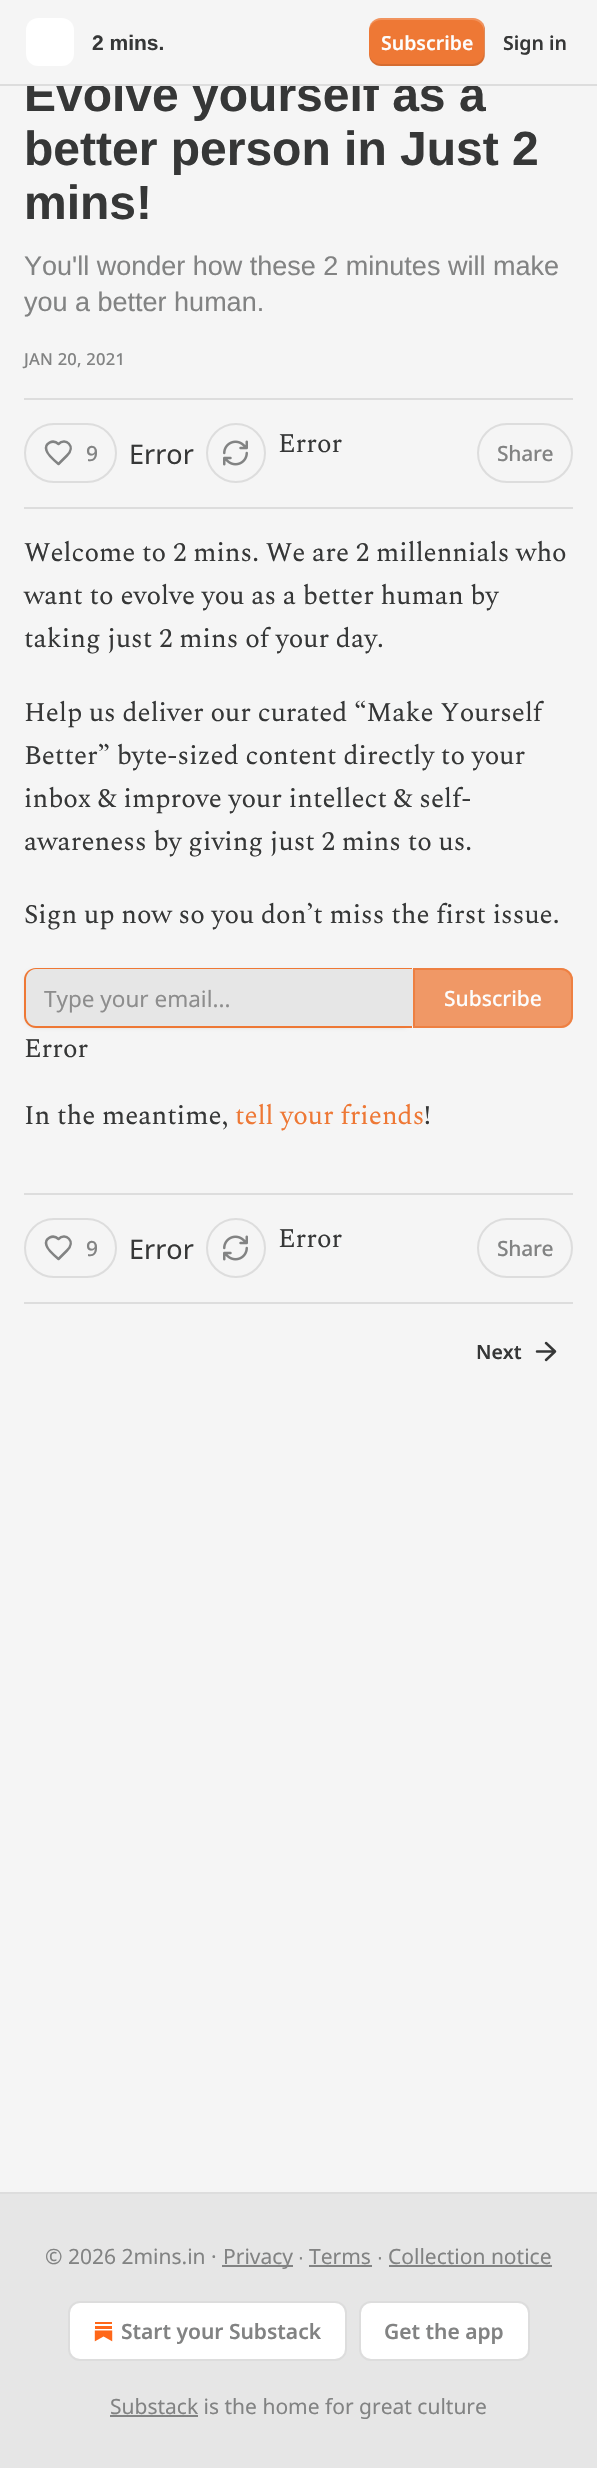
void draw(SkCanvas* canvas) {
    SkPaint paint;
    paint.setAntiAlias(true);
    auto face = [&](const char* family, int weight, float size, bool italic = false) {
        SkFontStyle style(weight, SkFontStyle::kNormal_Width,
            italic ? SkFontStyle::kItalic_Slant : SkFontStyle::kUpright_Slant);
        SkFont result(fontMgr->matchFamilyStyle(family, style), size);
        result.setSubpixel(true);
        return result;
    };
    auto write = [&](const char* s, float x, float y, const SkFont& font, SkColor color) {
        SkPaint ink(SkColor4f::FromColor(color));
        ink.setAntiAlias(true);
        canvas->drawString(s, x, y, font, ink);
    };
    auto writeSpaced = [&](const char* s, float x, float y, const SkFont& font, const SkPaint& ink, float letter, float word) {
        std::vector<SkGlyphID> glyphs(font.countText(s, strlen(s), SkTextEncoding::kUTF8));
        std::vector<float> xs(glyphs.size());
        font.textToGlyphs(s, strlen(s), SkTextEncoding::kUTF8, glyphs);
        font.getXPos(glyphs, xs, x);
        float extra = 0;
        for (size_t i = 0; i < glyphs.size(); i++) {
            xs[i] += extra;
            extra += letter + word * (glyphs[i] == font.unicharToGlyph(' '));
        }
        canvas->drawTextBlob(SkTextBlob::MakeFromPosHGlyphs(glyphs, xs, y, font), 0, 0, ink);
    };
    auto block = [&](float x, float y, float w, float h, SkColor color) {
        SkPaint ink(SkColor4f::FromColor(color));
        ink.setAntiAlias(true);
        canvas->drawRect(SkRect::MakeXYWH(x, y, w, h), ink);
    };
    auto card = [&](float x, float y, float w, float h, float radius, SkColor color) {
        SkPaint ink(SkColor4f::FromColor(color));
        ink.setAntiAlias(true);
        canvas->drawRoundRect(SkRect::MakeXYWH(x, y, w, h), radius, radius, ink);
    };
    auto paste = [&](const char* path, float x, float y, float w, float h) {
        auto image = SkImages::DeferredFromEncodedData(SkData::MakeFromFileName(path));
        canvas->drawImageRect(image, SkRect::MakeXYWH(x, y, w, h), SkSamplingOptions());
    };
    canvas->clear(SkColorSetRGB(245, 245, 245));
    auto kFont1 = face("Liberation Sans", 700, 48);
    write("Evolve yourself as a", 24, 111, kFont1, SkColorSetRGB(54, 55, 55));
    block(27, 76, 352, 8, SkColorSetRGB(245, 245, 245));
    block(0, 84, 597, 2, SkColorSetRGB(221, 221, 221));
    card(26, 18, 48, 48, 12, SK_ColorWHITE);
    auto kFont2 = face("Liberation Sans", 700, 21);
    write("2 mins.", 92, 50, kFont2, SkColorSetRGB(54, 55, 55));
    card(369, 18, 116, 48, 12, SkColorSetRGB(238, 120, 53));
    paint.setColor(SkColorSetARGB(26, 0, 0, 0));
    canvas->drawPath(SkPathBuilder().moveTo(369, 52).lineTo(369, 54).cubicTo(369, 61, 374, 66, 381, 66).lineTo(473, 66).cubicTo(480, 66, 485, 61, 485, 54).lineTo(485, 30).cubicTo(485, 28, 484, 25, 483, 23).lineTo(484, 28).lineTo(484, 52).cubicTo(484, 59, 479, 64, 472, 64).lineTo(381, 64).cubicTo(374, 64, 369, 59, 369, 52).close().detach(), paint);
    paint.setColor(SkColorSetARGB(51, 255, 255, 255));
    canvas->drawPath(SkPathBuilder().moveTo(381, 20).lineTo(472, 20).cubicTo(479, 20, 484, 25, 484, 32).lineTo(484, 56).lineTo(483, 61).cubicTo(484, 59, 485, 56, 485, 54).lineTo(485, 30).cubicTo(485, 23, 480, 18, 473, 18).lineTo(381, 18).cubicTo(374, 18, 369, 23, 369, 30).lineTo(369, 32).cubicTo(369, 25, 374, 20, 381, 20).close().detach(), paint);
    auto kFont3 = face("Noto Sans", 600, 19.5f);
    write("Subscribe", 381, 50, kFont3, SkColorSetRGB(253, 253, 253));
    write("Sign in", 503, 50, kFont3, SkColorSetRGB(54, 55, 55));
    write("better person in Just 2", 24, 165, kFont1, SkColorSetRGB(54, 55, 55));
    write("mins!", 24, 219, kFont1, SkColorSetRGB(54, 55, 55));
    auto kFont4 = face("Liberation Sans", 400, 27);
    write("You'll wonder how these 2 minutes will make", 24, 275, kFont4, SkColorSetRGB(130, 131, 131));
    write("you a better human.", 24, 311, kFont4, SkColorSetRGB(130, 131, 131));
    auto kFont5 = face("Noto Sans", 500, 16.5f);
    paint.setColor(SkColorSetRGB(130, 131, 131));
    writeSpaced("JAN 20, 2021", 24, 365, kFont5, paint, 0.25f, 0);
    block(24, 398, 549, 2, SkColorSetRGB(221, 221, 221));
    block(24, 507, 549, 2, SkColorSetRGB(221, 221, 221));
    paint.setStyle(SkPaint::kStroke_Style);
    paint.setStrokeWidth(2);
    paint.setColor(SkColorSetRGB(221, 221, 221));
    canvas->drawRoundRect(SkRect::MakeXYWH(25, 424, 91, 58), 29, 29, paint);
    paint.setStrokeWidth(2.5f);
    paint.setStrokeCap(SkPaint::kRound_Cap);
    paint.setStrokeJoin(SkPaint::kRound_Join);
    paint.setColor(SkColorSetRGB(130, 131, 131));
    canvas->drawPath(SkPathBuilder().moveTo(67, 455.5f).cubicTo(76.5f, 446.5f, 65.5f, 437, 58.5f, 444).cubicTo(53, 439, 44, 443, 46.5f, 450.5f).cubicTo(47.5f, 454.5f, 55.5f, 461.5f, 58.5f, 464).close().detach(), paint);
    auto kFont6 = face("Noto Sans", 500, 21);
    paint.setStyle(SkPaint::kFill_Style);
    writeSpaced("9", 86, 461, kFont6, paint, -0.25f, 0);
    auto kFont7 = face("Noto Sans", 400, 27);
    write("Error", 129, 464, kFont7, SkColorSetRGB(54, 55, 55));
    paint.setStyle(SkPaint::kStroke_Style);
    paint.setStrokeWidth(2);
    paint.setStrokeCap(SkPaint::kButt_Cap);
    paint.setStrokeJoin(SkPaint::kMiter_Join);
    paint.setColor(SkColorSetRGB(221, 221, 221));
    canvas->drawCircle(236, 453, 29, paint);
    paste("pic1.png", 223, 440, 25, 26);
    auto kFont8 = face("Spectral", 400, 27);
    write("Error", 278, 452, kFont8, SkColorSetRGB(54, 55, 55));
    canvas->drawRoundRect(SkRect::MakeXYWH(478, 424, 94, 58), 29, 29, paint);
    paint.setStyle(SkPaint::kFill_Style);
    paint.setColor(SkColorSetRGB(130, 131, 131));
    writeSpaced("Share", 497, 461, kFont6, paint, -0.25f, 0);
    write("Welcome to 2 mins. We are 2 millennials who", 24, 561, kFont8, SkColorSetRGB(54, 55, 55));
    write("want to evolve you as a better human by", 24, 604, kFont8, SkColorSetRGB(54, 55, 55));
    write("taking just 2 mins of your day.", 24, 647, kFont8, SkColorSetRGB(54, 55, 55));
    write("Help us deliver our curated “Make Yourself", 24, 721, kFont8, SkColorSetRGB(54, 55, 55));
    write("Better” byte-sized content directly to your", 24, 764, kFont8, SkColorSetRGB(54, 55, 55));
    write("inbox & improve your intellect & self-", 24, 807, kFont8, SkColorSetRGB(54, 55, 55));
    write("awareness by giving just 2 mins to us.", 24, 850, kFont8, SkColorSetRGB(54, 55, 55));
    write("Sign up now so you don’t miss the first issue.", 24, 923, kFont8, SkColorSetRGB(54, 55, 55));
    paint.setColor(SkColorSetARGB(13, 0, 0, 0));
    paint.setMaskFilter(SkMaskFilter::MakeBlur(kNormal_SkBlurStyle, 1.5f));
    canvas->drawRoundRect(SkRect::MakeXYWH(24, 969, 389, 60), 12, 12, paint);
    paint.setMaskFilter(nullptr);
    paint.setColor(SkColorSetRGB(230, 230, 230));
    canvas->drawPath(SkPathBuilder().moveTo(37, 969).lineTo(413, 969).lineTo(413, 1026).lineTo(37, 1026).cubicTo(31, 1026, 26, 1021, 26, 1015).lineTo(26, 980).cubicTo(26, 974, 31, 969, 37, 969).close().detach(), paint);
    paint.setColor(SkColorSetRGB(238, 120, 53));
    canvas->drawPath(SkPathBuilder(SkPathFillType::kEvenOdd).moveTo(36, 968).lineTo(412, 968).lineTo(412, 1028).lineTo(36, 1028).cubicTo(29, 1028, 24, 1022, 24, 1016).lineTo(24, 980).cubicTo(24, 973, 29, 968, 36, 968).close().moveTo(36, 969).lineTo(412, 969).lineTo(412, 1026).lineTo(36, 1026).cubicTo(30, 1026, 26, 1021, 26, 1016).lineTo(26, 980).cubicTo(26, 974, 30, 969, 36, 969).close().detach(), paint);
    auto kFont9 = face("Noto Sans", 400, 22.5f);
    write("Type your email...", 44, 1007, kFont9, SkColorSetRGB(141, 141, 141));
    paint.setColor(SkColorSetARGB(191, 238, 120, 53));
    canvas->drawPath(SkPathBuilder().moveTo(413, 968).lineTo(561, 968).cubicTo(567.5f, 968, 573, 973.5f, 573, 980).lineTo(573, 1016).cubicTo(573, 1022.5f, 567.5f, 1028, 561, 1028).lineTo(413, 1028).close().detach(), paint);
    paint.setStyle(SkPaint::kStroke_Style);
    canvas->drawPath(SkPathBuilder().moveTo(414, 969).lineTo(561, 969).cubicTo(567, 969, 572, 974, 572, 980).lineTo(572, 1016).cubicTo(572, 1022, 567, 1027, 561, 1027).lineTo(414, 1027).close().detach(), paint);
    write("Subscribe", 444, 1006, kFont6, SkColorSetRGB(253, 253, 253));
    write("Error", 24, 1057, kFont8, SkColorSetRGB(54, 55, 55));
    write("In the meantime,", 24, 1124, kFont8, SkColorSetRGB(54, 55, 55));
    write("tell your friends", 235, 1124, kFont8, SkColorSetRGB(238, 120, 53));
    write("!", 424, 1124, kFont8, SkColorSetRGB(54, 55, 55));
    block(24, 1193, 549, 2, SkColorSetRGB(221, 221, 221));
    block(24, 1302, 549, 2, SkColorSetRGB(221, 221, 221));
    paint.setColor(SkColorSetRGB(221, 221, 221));
    canvas->drawRoundRect(SkRect::MakeXYWH(25, 1219, 91, 58), 29, 29, paint);
    paint.setStrokeWidth(2.5f);
    paint.setStrokeCap(SkPaint::kRound_Cap);
    paint.setStrokeJoin(SkPaint::kRound_Join);
    paint.setColor(SkColorSetRGB(130, 131, 131));
    canvas->drawPath(SkPathBuilder().moveTo(67, 1250.5f).cubicTo(76.5f, 1241.5f, 65.5f, 1232, 58.5f, 1239).cubicTo(53, 1234, 44, 1238, 46.5f, 1245.5f).cubicTo(47.5f, 1249.5f, 55.5f, 1256.5f, 58.5f, 1259).close().detach(), paint);
    paint.setStyle(SkPaint::kFill_Style);
    writeSpaced("9", 86, 1256, kFont6, paint, -0.25f, 0);
    write("Error", 129, 1259, kFont7, SkColorSetRGB(54, 55, 55));
    paint.setStyle(SkPaint::kStroke_Style);
    paint.setStrokeWidth(2);
    paint.setStrokeCap(SkPaint::kButt_Cap);
    paint.setStrokeJoin(SkPaint::kMiter_Join);
    paint.setColor(SkColorSetRGB(221, 221, 221));
    canvas->drawCircle(236, 1248, 29, paint);
    paste("pic1.png", 223, 1235, 25, 26);
    write("Error", 278, 1247, kFont8, SkColorSetRGB(54, 55, 55));
    canvas->drawRoundRect(SkRect::MakeXYWH(478, 1219, 94, 58), 29, 29, paint);
    paint.setStyle(SkPaint::kFill_Style);
    paint.setColor(SkColorSetRGB(130, 131, 131));
    writeSpaced("Share", 497, 1256, kFont6, paint, -0.25f, 0);
    write("Next", 476, 1359, kFont3, SkColorSetRGB(54, 55, 55));
    paint.setStyle(SkPaint::kStroke_Style);
    paint.setStrokeWidth(2.5f);
    paint.setStrokeCap(SkPaint::kRound_Cap);
    paint.setStrokeJoin(SkPaint::kRound_Join);
    paint.setColor(SkColorSetRGB(54, 55, 55));
    canvas->drawPath(SkPathBuilder().moveTo(537, 1351.5f).lineTo(555, 1351.5f).moveTo(546, 1343).lineTo(555, 1351.5f).lineTo(546, 1360).detach(), paint);
    block(0, 2194, 597, 274, SkColorSetRGB(230, 230, 230));
    block(0, 2192, 597, 2, SkColorSetRGB(221, 221, 221));
    auto kFont10 = face("Noto Sans", 400, 21);
    write("© 2026 2mins.in ·", 45, 2264, kFont10, SkColorSetRGB(130, 131, 131));
    block(222, 2265, 71, 2, SkColorSetRGB(130, 131, 131));
    write("Privacy", 223, 2264, kFont10, SkColorSetRGB(130, 131, 131));
    auto kFont11 = face("Liberation Sans", 400, 21);
    write("∙", 298, 2264, kFont11, SkColorSetRGB(130, 131, 131));
    write("Terms", 309, 2264, kFont10, SkColorSetRGB(130, 131, 131));
    block(309, 2265, 63, 2, SkColorSetRGB(130, 131, 131));
    write("∙", 377, 2264, kFont11, SkColorSetRGB(130, 131, 131));
    write("Collection notice", 388, 2264, kFont10, SkColorSetRGB(130, 131, 131));
    block(389, 2265, 163, 2, SkColorSetRGB(130, 131, 131));
    paint.setStyle(SkPaint::kFill_Style);
    paint.setColor(SK_ColorWHITE);
    canvas->drawRoundRect(SkRect::MakeXYWH(69, 2302, 277, 58), 11, 11, paint);
    paint.setStyle(SkPaint::kStroke_Style);
    paint.setStrokeWidth(2);
    paint.setStrokeCap(SkPaint::kButt_Cap);
    paint.setStrokeJoin(SkPaint::kMiter_Join);
    paint.setColor(SkColorSetRGB(221, 221, 221));
    canvas->drawRoundRect(SkRect::MakeXYWH(69, 2302, 277, 58), 11, 11, paint);
    paste("pic2.png", 94, 2322, 19, 20);
    auto kFont12 = face("Noto Sans", 600, 21);
    write("Start your Substack", 121, 2339, kFont12, SkColorSetRGB(130, 131, 131));
    paint.setStyle(SkPaint::kFill_Style);
    paint.setColor(SK_ColorWHITE);
    canvas->drawRoundRect(SkRect::MakeXYWH(360, 2302, 169, 58), 11, 11, paint);
    paint.setStyle(SkPaint::kStroke_Style);
    paint.setColor(SkColorSetRGB(221, 221, 221));
    canvas->drawRoundRect(SkRect::MakeXYWH(360, 2302, 169, 58), 11, 11, paint);
    write("Get the app", 384, 2339, kFont12, SkColorSetRGB(130, 131, 131));
    block(110, 2415, 88, 2, SkColorSetRGB(130, 131, 131));
    write("Substack is the home for great culture", 110, 2414, kFont10, SkColorSetRGB(130, 131, 131));
}
